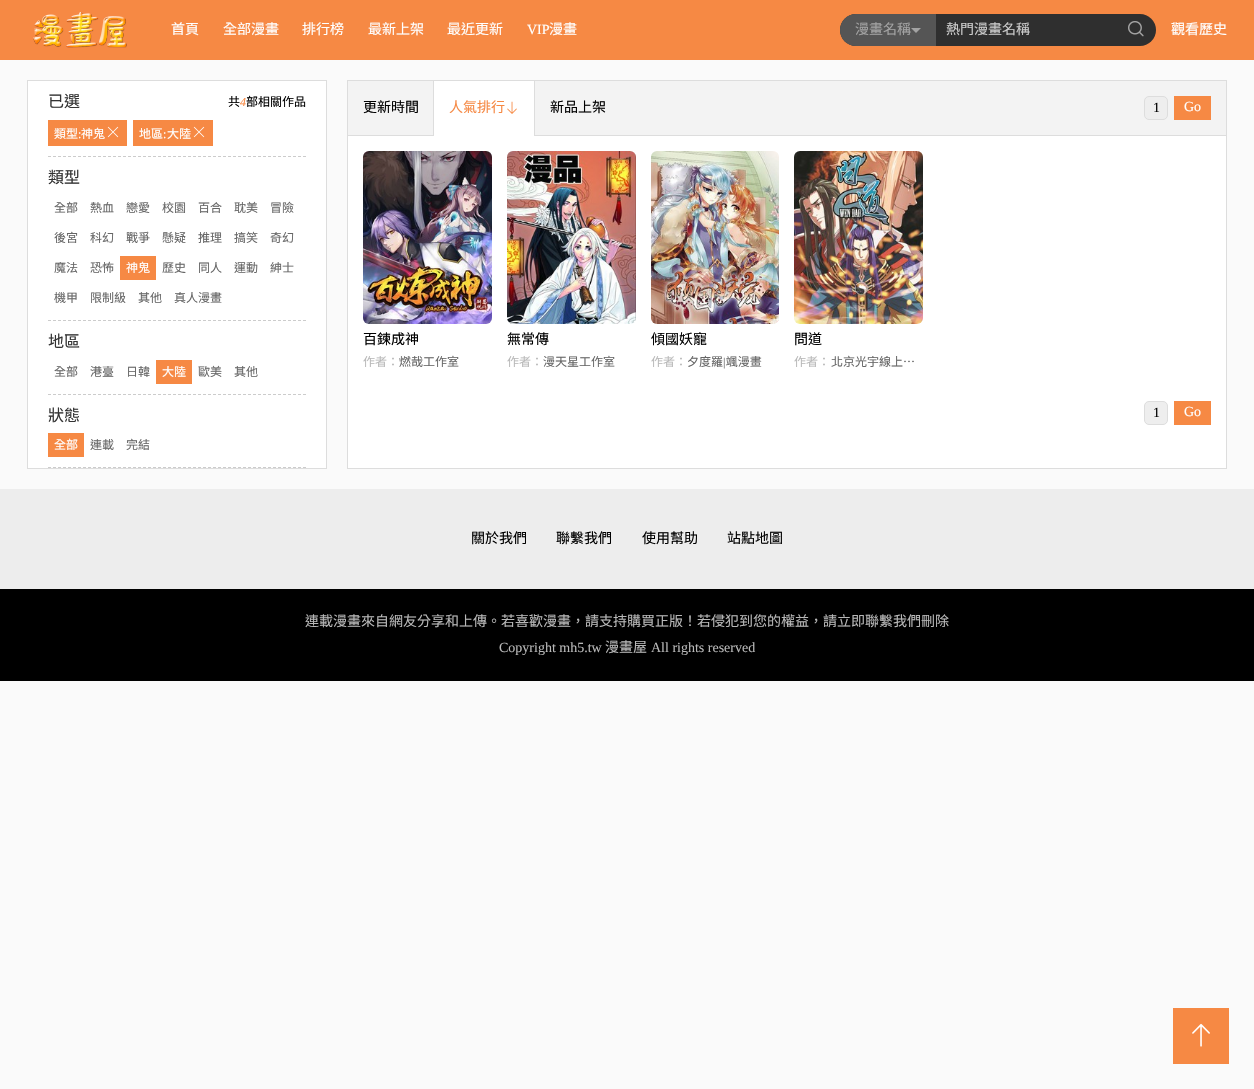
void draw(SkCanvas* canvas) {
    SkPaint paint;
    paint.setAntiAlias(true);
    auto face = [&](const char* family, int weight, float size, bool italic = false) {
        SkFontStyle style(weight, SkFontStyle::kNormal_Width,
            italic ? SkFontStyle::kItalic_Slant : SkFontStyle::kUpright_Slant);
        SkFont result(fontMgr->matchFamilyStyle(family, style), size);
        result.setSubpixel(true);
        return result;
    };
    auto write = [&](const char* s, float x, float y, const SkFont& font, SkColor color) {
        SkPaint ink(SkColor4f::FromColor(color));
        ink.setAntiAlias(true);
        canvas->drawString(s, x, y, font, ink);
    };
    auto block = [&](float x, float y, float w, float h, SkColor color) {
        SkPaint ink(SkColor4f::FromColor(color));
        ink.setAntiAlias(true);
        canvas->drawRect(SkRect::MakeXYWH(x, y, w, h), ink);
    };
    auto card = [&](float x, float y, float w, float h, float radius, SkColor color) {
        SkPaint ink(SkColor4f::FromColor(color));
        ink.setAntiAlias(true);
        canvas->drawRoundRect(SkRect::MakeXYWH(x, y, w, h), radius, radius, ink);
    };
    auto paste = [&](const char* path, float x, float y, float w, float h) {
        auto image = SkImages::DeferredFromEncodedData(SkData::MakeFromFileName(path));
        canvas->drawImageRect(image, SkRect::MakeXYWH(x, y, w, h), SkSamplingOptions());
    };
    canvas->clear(SkColorSetRGB(250, 250, 250));
    block(0, 0, 1254, 60, SkColorSetRGB(246, 137, 68));
    paste("pic1.png", 33, 12, 94, 36);
    auto kFont1 = face("Noto Sans CJK TC", 400, 14);
    write("首頁", 171, 34, kFont1, SK_ColorWHITE);
    write("全部漫畫", 223, 34, kFont1, SK_ColorWHITE);
    write("排行榜", 302, 34, kFont1, SK_ColorWHITE);
    write("最新上架", 368, 34, kFont1, SK_ColorWHITE);
    write("最近更新", 447, 34, kFont1, SK_ColorWHITE);
    auto kFont2 = face("Liberation Serif", 400, 14);
    write("VIP", 527, 34, kFont2, SK_ColorWHITE);
    write("漫畫", 549, 34, kFont1, SK_ColorWHITE);
    card(840, 14, 316, 32, 16, SkColorSetRGB(47, 47, 47));
    paint.setColor(SkColorSetRGB(85, 85, 85));
    canvas->drawPath(SkPathBuilder().moveTo(856, 14).lineTo(936, 14).lineTo(936, 46).lineTo(856, 46).cubicTo(847, 46, 840, 39, 840, 30).cubicTo(840, 21, 847, 14, 856, 14).close().detach(), paint);
    write("漫畫名稱", 855, 34, kFont1, SkColorSetRGB(163, 163, 163));
    paint.setColor(SkColorSetRGB(163, 163, 163));
    canvas->drawPath(SkPathBuilder().moveTo(911, 28).lineTo(921, 28).lineTo(916, 33).close().detach(), paint);
    write("熱門漫畫名稱", 946, 34, kFont1, SkColorSetRGB(204, 204, 204));
    paste("pic2.png", 1128, 21, 16, 16);
    write("觀看歷史", 1171, 34, kFont1, SK_ColorWHITE);
    paint.setColor(SK_ColorWHITE);
    canvas->drawRect(SkRect::MakeXYWH(27.5f, 80.5f, 299, 388), paint);
    paint.setStyle(SkPaint::kStroke_Style);
    paint.setStrokeWidth(1);
    paint.setColor(SkColorSetRGB(221, 221, 221));
    canvas->drawRect(SkRect::MakeXYWH(27.5f, 80.5f, 299, 388), paint);
    paint.setColor(SkColorSetRGB(204, 204, 204));
    paint.setPathEffect(SkDashPathEffect::Make({{3, 2}}, 0));
    canvas->drawPath(SkPathBuilder().moveTo(48, 156.5f).lineTo(306, 156.5f).detach(), paint);
    paint.setPathEffect(nullptr);
    auto kFont3 = face("Noto Sans CJK TC", 400, 16);
    write("已選", 48, 107, kFont3, SkColorSetRGB(51, 51, 51));
    auto kFont4 = face("Noto Sans CJK TC", 400, 12);
    write("共", 228, 106, kFont4, SK_ColorBLACK);
    auto kFont5 = face("Liberation Serif", 400, 12, true);
    write("4", 240, 106, kFont5, SkColorSetRGB(246, 137, 68));
    write("部相關作品", 246, 106, kFont4, SK_ColorBLACK);
    block(48, 120, 79, 26, SkColorSetRGB(246, 137, 68));
    write("類型", 54, 138, kFont4, SK_ColorWHITE);
    auto kFont6 = face("Liberation Serif", 400, 12);
    write(":", 78, 138, kFont6, SK_ColorWHITE);
    write("神鬼", 81, 138, kFont4, SK_ColorWHITE);
    paste("pic3.png", 107, 126, 12, 12);
    block(133, 120, 80, 26, SkColorSetRGB(246, 137, 68));
    write("地區", 139, 138, kFont4, SK_ColorWHITE);
    write(":", 163, 138, kFont6, SK_ColorWHITE);
    write("大陸", 167, 138, kFont4, SK_ColorWHITE);
    paste("pic3.png", 193, 126, 12, 12);
    paint.setPathEffect(SkDashPathEffect::Make({{3, 2}}, 0));
    canvas->drawPath(SkPathBuilder().moveTo(48, 320.5f).lineTo(306, 320.5f).detach(), paint);
    paint.setPathEffect(nullptr);
    write("類型", 48, 183, kFont3, SkColorSetRGB(51, 51, 51));
    write("全部", 54, 212, kFont4, SkColorSetRGB(102, 102, 102));
    write("熱血", 90, 212, kFont4, SkColorSetRGB(102, 102, 102));
    write("戀愛", 126, 212, kFont4, SkColorSetRGB(102, 102, 102));
    write("校園", 162, 212, kFont4, SkColorSetRGB(102, 102, 102));
    write("百合", 198, 212, kFont4, SkColorSetRGB(102, 102, 102));
    write("耽美", 234, 212, kFont4, SkColorSetRGB(102, 102, 102));
    write("冒險", 270, 212, kFont4, SkColorSetRGB(102, 102, 102));
    write("後宮", 54, 242, kFont4, SkColorSetRGB(102, 102, 102));
    write("科幻", 90, 242, kFont4, SkColorSetRGB(102, 102, 102));
    write("戰爭", 126, 242, kFont4, SkColorSetRGB(102, 102, 102));
    write("懸疑", 162, 242, kFont4, SkColorSetRGB(102, 102, 102));
    write("推理", 198, 242, kFont4, SkColorSetRGB(102, 102, 102));
    write("搞笑", 234, 242, kFont4, SkColorSetRGB(102, 102, 102));
    write("奇幻", 270, 242, kFont4, SkColorSetRGB(102, 102, 102));
    write("魔法", 54, 272, kFont4, SkColorSetRGB(102, 102, 102));
    write("恐怖", 90, 272, kFont4, SkColorSetRGB(102, 102, 102));
    block(120, 256, 36, 24, SkColorSetRGB(246, 137, 68));
    write("神鬼", 126, 272, kFont4, SK_ColorWHITE);
    write("歷史", 162, 272, kFont4, SkColorSetRGB(102, 102, 102));
    write("同人", 198, 272, kFont4, SkColorSetRGB(102, 102, 102));
    write("運動", 234, 272, kFont4, SkColorSetRGB(102, 102, 102));
    write("紳士", 270, 272, kFont4, SkColorSetRGB(102, 102, 102));
    write("機甲", 54, 302, kFont4, SkColorSetRGB(102, 102, 102));
    write("限制級", 90, 302, kFont4, SkColorSetRGB(102, 102, 102));
    write("其他", 138, 302, kFont4, SkColorSetRGB(102, 102, 102));
    write("真人漫畫", 174, 302, kFont4, SkColorSetRGB(102, 102, 102));
    paint.setPathEffect(SkDashPathEffect::Make({{3, 2}}, 0));
    canvas->drawPath(SkPathBuilder().moveTo(48, 394.5f).lineTo(306, 394.5f).detach(), paint);
    paint.setPathEffect(nullptr);
    write("地區", 48, 347, kFont3, SkColorSetRGB(51, 51, 51));
    write("全部", 54, 376, kFont4, SkColorSetRGB(102, 102, 102));
    write("港臺", 90, 376, kFont4, SkColorSetRGB(102, 102, 102));
    write("日韓", 126, 376, kFont4, SkColorSetRGB(102, 102, 102));
    block(156, 360, 36, 24, SkColorSetRGB(246, 137, 68));
    write("大陸", 162, 376, kFont4, SK_ColorWHITE);
    write("歐美", 198, 376, kFont4, SkColorSetRGB(102, 102, 102));
    write("其他", 234, 376, kFont4, SkColorSetRGB(102, 102, 102));
    paint.setPathEffect(SkDashPathEffect::Make({{3, 2}}, 0));
    canvas->drawPath(SkPathBuilder().moveTo(48, 467.5f).lineTo(306, 467.5f).detach(), paint);
    paint.setPathEffect(nullptr);
    write("狀態", 48, 421, kFont3, SkColorSetRGB(51, 51, 51));
    block(48, 433, 36, 24, SkColorSetRGB(246, 137, 68));
    write("全部", 54, 449, kFont4, SK_ColorWHITE);
    write("連載", 90, 449, kFont4, SkColorSetRGB(102, 102, 102));
    write("完結", 126, 449, kFont4, SkColorSetRGB(102, 102, 102));
    block(348, 136, 878, 332, SK_ColorWHITE);
    paint.setColor(SkColorSetRGB(221, 221, 221));
    canvas->drawRect(SkRect::MakeXYWH(347.5f, 80.5f, 879, 388), paint);
    block(348, 81, 878, 54, SkColorSetRGB(243, 243, 243));
    block(348, 135, 878, 1, SkColorSetRGB(221, 221, 221));
    write("更新時間", 363, 112, kFont1, SK_ColorBLACK);
    block(434, 81, 100, 55, SK_ColorWHITE);
    block(534, 81, 1, 55, SkColorSetRGB(221, 221, 221));
    block(433, 81, 1, 55, SkColorSetRGB(221, 221, 221));
    write("人氣排行", 449, 112, kFont1, SkColorSetRGB(246, 137, 68));
    paste("pic4.png", 507, 101, 10, 13);
    write("新品上架", 550, 112, kFont1, SK_ColorBLACK);
    paint.setStyle(SkPaint::kFill_Style);
    paint.setColor(SkColorSetRGB(238, 238, 238));
    canvas->drawRoundRect(SkRect::MakeXYWH(1144.5f, 96.5f, 23, 23), 4.5f, 4.5f, paint);
    paint.setStyle(SkPaint::kStroke_Style);
    paint.setColor(SkColorSetRGB(221, 221, 221));
    canvas->drawRoundRect(SkRect::MakeXYWH(1144.5f, 96.5f, 23, 23), 4.5f, 4.5f, paint);
    write("1", 1153, 112, kFont2, SK_ColorBLACK);
    block(1174, 96, 37, 24, SkColorSetRGB(246, 137, 68));
    write("Go", 1184, 111, kFont2, SK_ColorWHITE);
    paste("pic5.png", 363, 151, 129, 173);
    write("百鍊成神", 363, 344, kFont1, SK_ColorBLACK);
    write("作者：", 363, 366, kFont4, SkColorSetRGB(184, 184, 184));
    write("燃哉工作室", 399, 366, kFont4, SkColorSetRGB(102, 102, 102));
    paste("pic6.png", 507, 151, 129, 173);
    write("無常傳", 507, 344, kFont1, SK_ColorBLACK);
    write("作者：", 507, 366, kFont4, SkColorSetRGB(184, 184, 184));
    write("漫天星工作室", 543, 366, kFont4, SkColorSetRGB(102, 102, 102));
    paste("pic7.png", 651, 151, 128, 173);
    write("傾國妖寵", 651, 344, kFont1, SK_ColorBLACK);
    write("作者：", 651, 366, kFont4, SkColorSetRGB(184, 184, 184));
    write("夕度羅 颯漫畫", 687, 366, kFont4, SkColorSetRGB(102, 102, 102));
    write("|", 723, 366, kFont6, SkColorSetRGB(102, 102, 102));
    paste("pic8.png", 794, 151, 129, 173);
    write("問道", 794, 344, kFont1, SK_ColorBLACK);
    write("作者：", 794, 366, kFont4, SkColorSetRGB(184, 184, 184));
    write("北京光宇線上…", 831, 366, kFont4, SkColorSetRGB(102, 102, 102));
    paint.setStyle(SkPaint::kFill_Style);
    paint.setColor(SkColorSetRGB(238, 238, 238));
    canvas->drawRoundRect(SkRect::MakeXYWH(1144.5f, 401.5f, 23, 23), 4.5f, 4.5f, paint);
    paint.setStyle(SkPaint::kStroke_Style);
    paint.setColor(SkColorSetRGB(221, 221, 221));
    canvas->drawRoundRect(SkRect::MakeXYWH(1144.5f, 401.5f, 23, 23), 4.5f, 4.5f, paint);
    write("1", 1153, 417, kFont2, SK_ColorBLACK);
    block(1174, 401, 37, 24, SkColorSetRGB(246, 137, 68));
    write("Go", 1184, 416, kFont2, SK_ColorWHITE);
    block(0, 589, 1254, 92, SK_ColorBLACK);
    block(0, 489, 1254, 100, SkColorSetRGB(237, 237, 237));
    write("關於我們", 471, 543, kFont1, SK_ColorBLACK);
    write("聯繫我們", 556, 543, kFont1, SK_ColorBLACK);
    write("使用幫助", 642, 543, kFont1, SK_ColorBLACK);
    write("站點地圖", 727, 543, kFont1, SK_ColorBLACK);
    write("連載漫畫來自網友分享和上傳。若喜歡漫畫，請支持購買正版！若侵犯到您的權益，請立即聯繫我們刪除", 305, 626, kFont1, SkColorSetRGB(184, 184, 184));
    write("Copyright mh5.tw", 499, 652, kFont2, SkColorSetRGB(184, 184, 184));
    write("漫畫屋", 605, 652, kFont1, SkColorSetRGB(184, 184, 184));
    write("All rights reserved", 651, 652, kFont2, SkColorSetRGB(184, 184, 184));
    block(1173, 1008, 56, 56, SkColorSetRGB(246, 137, 68));
    paste("pic9.png", 1192, 1023, 18, 24);
}
